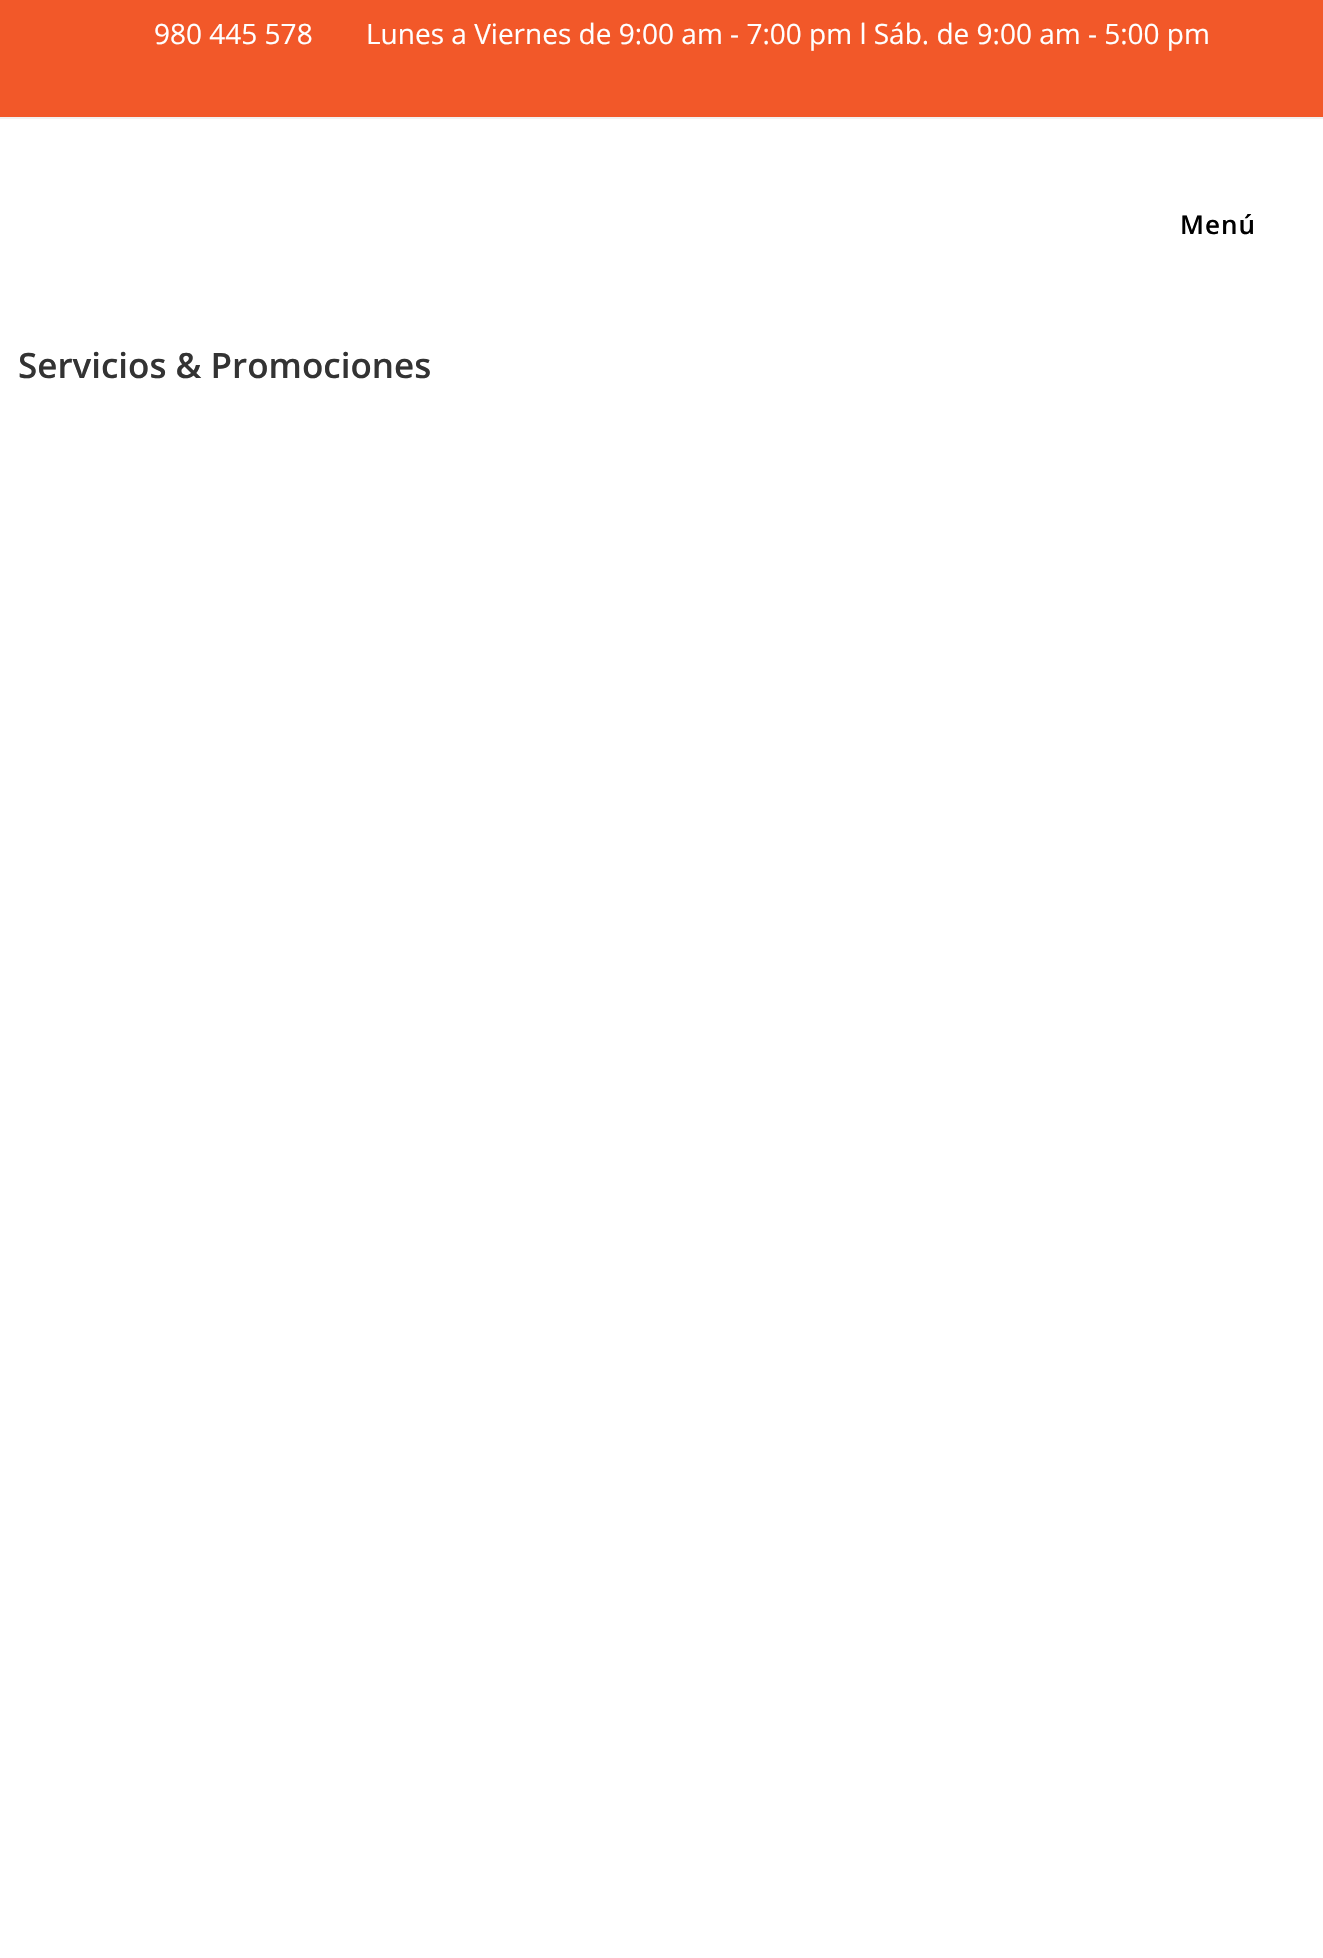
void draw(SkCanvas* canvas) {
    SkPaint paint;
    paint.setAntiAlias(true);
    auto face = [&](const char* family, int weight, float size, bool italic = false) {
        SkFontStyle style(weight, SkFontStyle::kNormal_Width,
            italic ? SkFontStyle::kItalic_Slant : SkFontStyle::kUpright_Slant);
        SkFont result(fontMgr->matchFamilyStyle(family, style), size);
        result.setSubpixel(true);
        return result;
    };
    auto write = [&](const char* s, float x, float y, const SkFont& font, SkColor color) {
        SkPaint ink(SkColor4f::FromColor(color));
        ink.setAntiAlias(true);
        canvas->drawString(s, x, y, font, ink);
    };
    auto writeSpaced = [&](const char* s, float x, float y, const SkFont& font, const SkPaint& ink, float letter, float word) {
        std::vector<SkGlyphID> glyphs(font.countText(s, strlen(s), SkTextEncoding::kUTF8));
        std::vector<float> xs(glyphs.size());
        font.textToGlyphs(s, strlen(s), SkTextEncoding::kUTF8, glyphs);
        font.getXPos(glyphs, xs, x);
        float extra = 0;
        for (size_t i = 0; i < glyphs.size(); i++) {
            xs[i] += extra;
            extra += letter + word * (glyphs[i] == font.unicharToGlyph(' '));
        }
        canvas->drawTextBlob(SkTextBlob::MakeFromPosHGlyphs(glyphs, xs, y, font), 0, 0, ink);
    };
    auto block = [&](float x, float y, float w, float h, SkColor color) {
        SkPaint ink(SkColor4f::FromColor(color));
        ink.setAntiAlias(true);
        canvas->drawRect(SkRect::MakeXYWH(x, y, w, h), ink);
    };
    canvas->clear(SK_ColorWHITE);
    block(0, 0, 1323, 117, SkColorSetRGB(242, 88, 41));
    block(0, 117, 1323, 2, SkColorSetRGB(241, 241, 241));
    auto kFont1 = face("Open Sans", 400, 28);
    write("980 445 578", 154, 44, kFont1, SK_ColorWHITE);
    write("Lunes a Viernes de 9:00 am - 7:00 pm l Sáb. de 9:00 am - 5:00 pm", 366, 44, kFont1, SK_ColorWHITE);
    auto kFont2 = face("Open Sans", 600, 26);
    paint.setColor(SK_ColorBLACK);
    writeSpaced("Menú", 1180, 234, kFont2, paint, 1, 0);
    auto kFont3 = face("Open Sans", 600, 35);
    write("Servicios & Promociones", 18, 378, kFont3, SkColorSetRGB(51, 51, 51));
}
